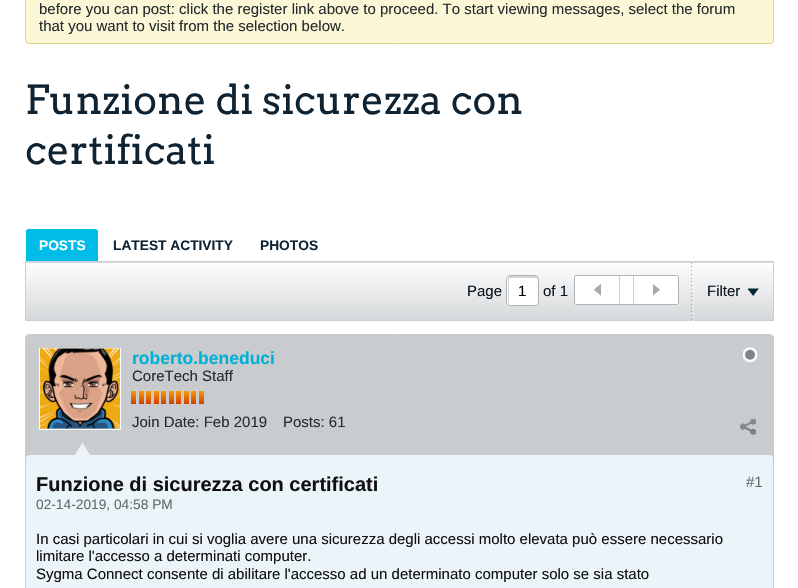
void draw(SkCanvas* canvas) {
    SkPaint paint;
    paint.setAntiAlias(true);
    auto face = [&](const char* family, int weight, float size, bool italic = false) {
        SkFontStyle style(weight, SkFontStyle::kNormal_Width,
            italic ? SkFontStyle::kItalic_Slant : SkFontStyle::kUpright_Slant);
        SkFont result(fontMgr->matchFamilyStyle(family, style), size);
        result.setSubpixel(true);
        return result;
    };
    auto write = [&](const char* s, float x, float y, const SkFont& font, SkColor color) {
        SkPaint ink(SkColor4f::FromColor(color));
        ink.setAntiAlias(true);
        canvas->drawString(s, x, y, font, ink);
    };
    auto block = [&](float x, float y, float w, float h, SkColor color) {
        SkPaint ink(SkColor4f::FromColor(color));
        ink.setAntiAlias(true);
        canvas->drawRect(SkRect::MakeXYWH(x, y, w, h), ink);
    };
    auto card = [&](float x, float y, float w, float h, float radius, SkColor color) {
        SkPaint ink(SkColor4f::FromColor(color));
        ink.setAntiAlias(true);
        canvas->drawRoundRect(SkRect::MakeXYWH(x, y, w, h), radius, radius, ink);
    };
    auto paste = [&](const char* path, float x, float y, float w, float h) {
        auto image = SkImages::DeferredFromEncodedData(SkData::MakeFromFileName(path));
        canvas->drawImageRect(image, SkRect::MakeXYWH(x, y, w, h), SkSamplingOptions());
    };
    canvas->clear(SK_ColorWHITE);
    paint.setColor(SkColorSetRGB(252, 247, 215));
    canvas->drawRoundRect(SkRect::MakeXYWH(25.5f, -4.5f, 748, 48), 3.5f, 3.5f, paint);
    paint.setStyle(SkPaint::kStroke_Style);
    paint.setStrokeWidth(1);
    paint.setColor(SkColorSetRGB(225, 212, 126));
    canvas->drawRoundRect(SkRect::MakeXYWH(25.5f, -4.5f, 748, 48), 3.5f, 3.5f, paint);
    auto kFont1 = face("Liberation Sans", 400, 15);
    write("before you can post: click the register link above to proceed. To start viewing messages, select the forum", 39, 14, kFont1, SkColorSetRGB(37, 44, 47));
    write("that you want to visit from the selection below.", 39, 31, kFont1, SkColorSetRGB(37, 44, 47));
    auto kFont2 = face("Arvo", 400, 40);
    write("Funzione di sicurezza con", 25, 114, kFont2, SkColorSetRGB(15, 35, 50));
    write("certificati", 25, 164, kFont2, SkColorSetRGB(15, 35, 50));
    paint.setStyle(SkPaint::kFill_Style);
    paint.setColor(SkColorSetRGB(0, 189, 232));
    canvas->drawPath(SkPathBuilder().moveTo(29, 228).lineTo(95, 228).cubicTo(97, 228, 99, 230, 99, 232).lineTo(99, 261).lineTo(25, 261).lineTo(25, 232).cubicTo(25, 230, 27, 228, 29, 228).close().detach(), paint);
    paint.setColor(SK_ColorWHITE);
    canvas->drawPath(SkPathBuilder(SkPathFillType::kEvenOdd).moveTo(29, 228).lineTo(95, 228).cubicTo(97, 228, 99, 229, 99, 231).lineTo(99, 261).lineTo(25, 261).lineTo(25, 231).cubicTo(25, 229, 27, 228, 29, 228).close().moveTo(29, 229).lineTo(95, 229).cubicTo(96, 229, 98, 230, 98, 231).lineTo(98, 261).lineTo(26, 261).lineTo(26, 231).cubicTo(26, 230, 27, 229, 29, 229).close().detach(), paint);
    auto kFont3 = face("Liberation Sans", 700, 13.75f);
    write("POSTS", 39, 250, kFont3, SK_ColorWHITE);
    write("LATEST ACTIVITY", 113, 250, kFont3, SkColorSetRGB(15, 35, 50));
    write("PHOTOS", 260, 250, kFont3, SkColorSetRGB(15, 35, 50));
    {
        const SkColor colors[] = {SkColorSetRGB(254, 254, 255), SkColorSetRGB(213, 216, 218)};
        const float stops[] = {0, 1};
        const SkPoint ends[] = {{399, 205}, {399, 263}};
        paint.setShader(SkGradientShader::MakeLinear(ends, colors, stops, 2, SkTileMode::kClamp));
        paint.setAlpha(255);
    }
    canvas->drawRect(SkRect::MakeXYWH(25, 262, 749, 1), paint);
    {
        const SkColor colors[] = {SkColorSetRGB(254, 254, 255), SkColorSetRGB(213, 216, 218)};
        const float stops[] = {0, 1};
        const SkPoint ends[] = {{399, 262}, {399, 320}};
        paint.setShader(SkGradientShader::MakeLinear(ends, colors, stops, 2, SkTileMode::kClamp));
        paint.setAlpha(255);
    }
    canvas->drawRect(SkRect::MakeXYWH(26, 264, 747, 56), paint);
    paint.setStyle(SkPaint::kStroke_Style);
    paint.setShader(nullptr);
    paint.setColor(SkColorSetRGB(201, 206, 210));
    canvas->drawRect(SkRect::MakeXYWH(25.5f, 261.5f, 748, 59), paint);
    write("Page", 467, 296, kFont1, SkColorSetRGB(9, 22, 27));
    card(506, 275, 33, 31, 4, SK_ColorWHITE);
    paint.setStyle(SkPaint::kFill_Style);
    paint.setColor(SkColorSetRGB(213, 213, 213));
    canvas->drawPath(SkPathBuilder().moveTo(511, 278).lineTo(536, 278).lineTo(538, 278.5f).cubicTo(538, 277, 537, 276, 535.5f, 276).lineTo(510.5f, 276).cubicTo(509, 276, 508, 277, 508, 278.5f).lineTo(508, 302.5f).cubicTo(508, 303.5f, 508.5f, 304, 509, 304.5f).lineTo(509, 284).cubicTo(509, 283, 508, 278, 511, 278).close().detach(), paint);
    paint.setStyle(SkPaint::kStroke_Style);
    paint.setColor(SkColorSetRGB(174, 179, 182));
    canvas->drawRoundRect(SkRect::MakeXYWH(506.5f, 275.5f, 32, 30), 3.5f, 3.5f, paint);
    write("1", 518, 296, kFont1, SK_ColorBLACK);
    write("of 1", 543, 296, kFont1, SkColorSetRGB(9, 22, 27));
    paint.setStyle(SkPaint::kFill_Style);
    paint.setColor(SK_ColorWHITE);
    canvas->drawRoundRect(SkRect::MakeXYWH(574.5f, 275.5f, 104, 29), 2, 2, paint);
    paint.setStyle(SkPaint::kStroke_Style);
    paint.setColor(SkColorSetRGB(174, 179, 182));
    canvas->drawRoundRect(SkRect::MakeXYWH(574.5f, 275.5f, 104, 29), 2, 2, paint);
    block(619, 276, 1, 28, SkColorSetRGB(205, 209, 212));
    paste("pic1.png", 594, 284, 7, 12);
    block(633, 276, 1, 28, SkColorSetRGB(205, 209, 212));
    paste("pic2.png", 653, 284, 7, 12);
    paste("pic3.png", 691, 263, 1, 57);
    paste("pic4.png", 693, 268, 1, 53);
    write("Filter", 707, 296, kFont1, SkColorSetRGB(9, 22, 27));
    paste("pic5.png", 748, 288, 11, 8);
    paint.setStyle(SkPaint::kFill_Style);
    paint.setColor(SkColorSetRGB(200, 204, 206));
    canvas->drawRoundRect(SkRect::MakeXYWH(25.5f, 334.5f, 748, 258), 3.5f, 3.5f, paint);
    paint.setStyle(SkPaint::kStroke_Style);
    canvas->drawRoundRect(SkRect::MakeXYWH(25.5f, 334.5f, 748, 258), 3.5f, 3.5f, paint);
    paint.setColor(SK_ColorWHITE);
    canvas->drawRect(SkRect::MakeXYWH(39.5f, 348.5f, 81, 81), paint);
    paste("pic6.png", 40, 348, 80, 81);
    auto kFont4 = face("Liberation Sans", 700, 17.5f);
    write("roberto.beneduci", 132, 364, kFont4, SkColorSetRGB(0, 177, 215));
    paste("pic7.png", 743, 347, 15, 15);
    write("CoreTech Staff", 132, 381, kFont1, SkColorSetRGB(37, 44, 47));
    paint.setStyle(SkPaint::kFill_Style);
    {
        const SkColor colors[] = {SkColorSetRGB(255, 153, 0), SkColorSetRGB(207, 65, 4)};
        const float stops[] = {0, 1};
        const SkPoint ends[] = {{134, 391}, {134, 404}};
        paint.setShader(SkGradientShader::MakeLinear(ends, colors, stops, 2, SkTileMode::kClamp));
        paint.setAlpha(255);
    }
    canvas->drawRect(SkRect::MakeXYWH(131, 391, 5, 13), paint);
    {
        const SkColor colors[] = {SkColorSetRGB(255, 153, 0), SkColorSetRGB(207, 65, 4)};
        const float stops[] = {0, 1};
        const SkPoint ends[] = {{141, 391}, {141, 404}};
        paint.setShader(SkGradientShader::MakeLinear(ends, colors, stops, 2, SkTileMode::kClamp));
        paint.setAlpha(255);
    }
    canvas->drawRect(SkRect::MakeXYWH(139, 391, 5, 13), paint);
    {
        const SkColor colors[] = {SkColorSetRGB(255, 153, 0), SkColorSetRGB(207, 65, 4)};
        const float stops[] = {0, 1};
        const SkPoint ends[] = {{149, 391}, {149, 404}};
        paint.setShader(SkGradientShader::MakeLinear(ends, colors, stops, 2, SkTileMode::kClamp));
        paint.setAlpha(255);
    }
    canvas->drawRect(SkRect::MakeXYWH(146, 391, 5, 13), paint);
    {
        const SkColor colors[] = {SkColorSetRGB(255, 153, 0), SkColorSetRGB(207, 65, 4)};
        const float stops[] = {0, 1};
        const SkPoint ends[] = {{156, 391}, {156, 404}};
        paint.setShader(SkGradientShader::MakeLinear(ends, colors, stops, 2, SkTileMode::kClamp));
        paint.setAlpha(255);
    }
    canvas->drawRect(SkRect::MakeXYWH(154, 391, 5, 13), paint);
    {
        const SkColor colors[] = {SkColorSetRGB(255, 153, 0), SkColorSetRGB(207, 65, 4)};
        const float stops[] = {0, 1};
        const SkPoint ends[] = {{164, 391}, {164, 404}};
        paint.setShader(SkGradientShader::MakeLinear(ends, colors, stops, 2, SkTileMode::kClamp));
        paint.setAlpha(255);
    }
    canvas->drawRect(SkRect::MakeXYWH(161, 391, 5, 13), paint);
    {
        const SkColor colors[] = {SkColorSetRGB(255, 153, 0), SkColorSetRGB(207, 65, 4)};
        const float stops[] = {0, 1};
        const SkPoint ends[] = {{171, 391}, {171, 404}};
        paint.setShader(SkGradientShader::MakeLinear(ends, colors, stops, 2, SkTileMode::kClamp));
        paint.setAlpha(255);
    }
    canvas->drawRect(SkRect::MakeXYWH(169, 391, 5, 13), paint);
    {
        const SkColor colors[] = {SkColorSetRGB(255, 153, 0), SkColorSetRGB(207, 65, 4)};
        const float stops[] = {0, 1};
        const SkPoint ends[] = {{179, 391}, {179, 404}};
        paint.setShader(SkGradientShader::MakeLinear(ends, colors, stops, 2, SkTileMode::kClamp));
        paint.setAlpha(255);
    }
    canvas->drawRect(SkRect::MakeXYWH(176, 391, 5, 13), paint);
    {
        const SkColor colors[] = {SkColorSetRGB(255, 153, 0), SkColorSetRGB(207, 65, 4)};
        const float stops[] = {0, 1};
        const SkPoint ends[] = {{186, 391}, {186, 404}};
        paint.setShader(SkGradientShader::MakeLinear(ends, colors, stops, 2, SkTileMode::kClamp));
        paint.setAlpha(255);
    }
    canvas->drawRect(SkRect::MakeXYWH(184, 391, 5, 13), paint);
    {
        const SkColor colors[] = {SkColorSetRGB(255, 153, 0), SkColorSetRGB(207, 65, 4)};
        const float stops[] = {0, 1};
        const SkPoint ends[] = {{194, 391}, {194, 404}};
        paint.setShader(SkGradientShader::MakeLinear(ends, colors, stops, 2, SkTileMode::kClamp));
        paint.setAlpha(255);
    }
    canvas->drawRect(SkRect::MakeXYWH(191, 391, 5, 13), paint);
    {
        const SkColor colors[] = {SkColorSetRGB(255, 153, 0), SkColorSetRGB(207, 65, 4)};
        const float stops[] = {0, 1};
        const SkPoint ends[] = {{201, 391}, {201, 404}};
        paint.setShader(SkGradientShader::MakeLinear(ends, colors, stops, 2, SkTileMode::kClamp));
        paint.setAlpha(255);
    }
    canvas->drawRect(SkRect::MakeXYWH(199, 391, 5, 13), paint);
    write("Join Date: Feb 2019", 132, 427, kFont1, SkColorSetRGB(37, 44, 47));
    write("Posts: 61", 283, 427, kFont1, SkColorSetRGB(37, 44, 47));
    paste("pic8.png", 740, 419, 16, 16);
    card(26, 455, 747, 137, 4, SkColorSetRGB(235, 244, 249));
    paint.setShader(nullptr);
    paint.setColor(SkColorSetRGB(235, 244, 249));
    canvas->drawPath(SkPathBuilder().moveTo(90, 455).lineTo(75, 455).lineTo(82.5f, 442.5f).close().detach(), paint);
    auto kFont5 = face("Liberation Sans", 700, 20);
    write("Funzione di sicurezza con certificati", 36, 491, kFont5, SkColorSetRGB(17, 17, 17));
    auto kFont6 = face("Liberation Sans", 400, 13.75f);
    write("02-14-2019, 04:58 PM", 36, 509, kFont6, SkColorSetRGB(101, 106, 109));
    write("#1", 746, 487, kFont1, SkColorSetRGB(101, 106, 109));
    write("In casi particolari in cui si voglia avere una sicurezza degli accessi molto elevata può essere necessario", 36, 544, kFont1, SkColorSetRGB(17, 17, 17));
    write("limitare l'accesso a determinati computer.", 36, 561, kFont1, SkColorSetRGB(17, 17, 17));
    write("Sygma Connect consente di abilitare l'accesso ad un determinato computer solo se sia stato", 36, 579, kFont1, SkColorSetRGB(17, 17, 17));
}
